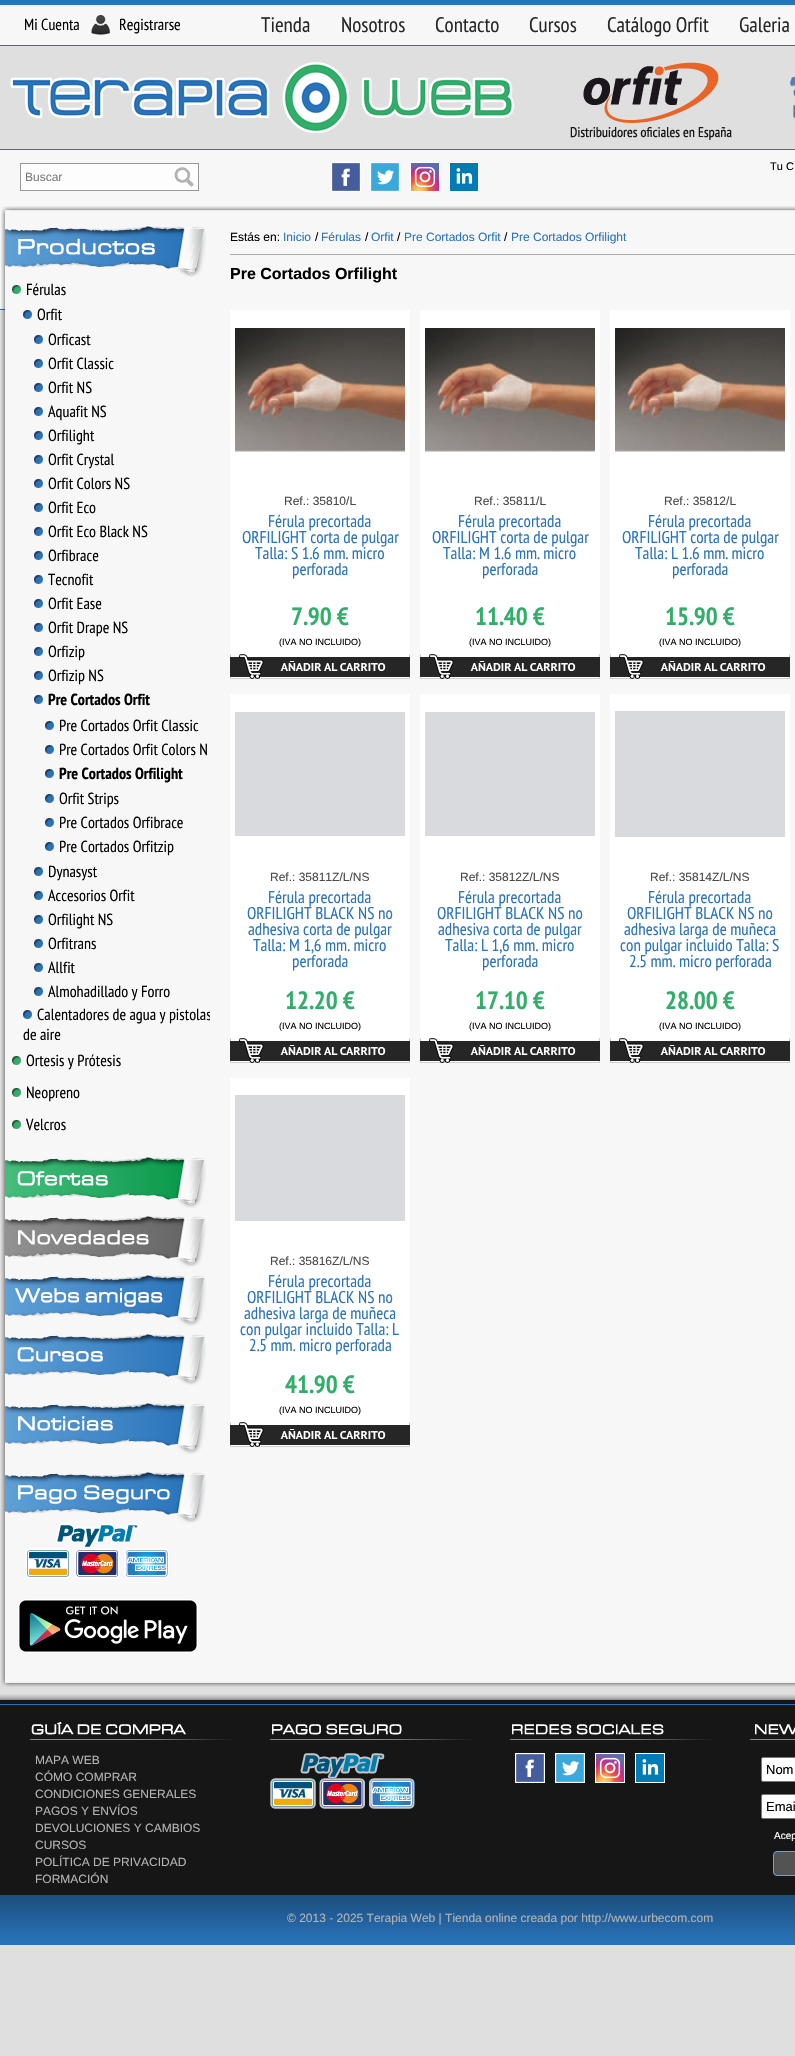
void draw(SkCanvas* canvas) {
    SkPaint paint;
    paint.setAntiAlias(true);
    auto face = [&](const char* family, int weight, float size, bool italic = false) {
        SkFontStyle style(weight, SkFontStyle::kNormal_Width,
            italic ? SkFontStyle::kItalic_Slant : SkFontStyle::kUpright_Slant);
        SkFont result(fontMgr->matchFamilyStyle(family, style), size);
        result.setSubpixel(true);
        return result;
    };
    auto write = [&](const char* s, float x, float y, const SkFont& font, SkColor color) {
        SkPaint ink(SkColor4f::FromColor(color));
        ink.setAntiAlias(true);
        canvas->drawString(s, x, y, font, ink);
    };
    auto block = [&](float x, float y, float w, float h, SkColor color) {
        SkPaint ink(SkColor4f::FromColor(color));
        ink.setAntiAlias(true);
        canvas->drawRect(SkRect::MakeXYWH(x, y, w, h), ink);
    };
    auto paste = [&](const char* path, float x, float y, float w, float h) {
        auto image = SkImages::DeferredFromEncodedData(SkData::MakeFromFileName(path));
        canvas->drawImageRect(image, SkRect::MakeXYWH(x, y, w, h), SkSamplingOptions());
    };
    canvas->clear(SkColorSetRGB(223, 223, 223));
    paste("pic1.png", 0, 0, 795, 310);
    paste("pic2.png", 91, 15, 19, 20);
    auto kFont1 = face("PT Sans Narrow", 400, 16);
    write("Mi Cuenta", 24, 30, kFont1, SK_ColorBLACK);
    write("Registrarse", 119, 30, kFont1, SK_ColorBLACK);
    auto kFont2 = face("PT Sans Narrow", 400, 21);
    write("Tienda", 261, 32, kFont2, SkColorSetRGB(38, 38, 38));
    write("Nosotros", 341, 32, kFont2, SkColorSetRGB(38, 38, 38));
    write("Contacto", 435, 32, kFont2, SkColorSetRGB(38, 38, 38));
    write("Cursos", 529, 32, kFont2, SkColorSetRGB(38, 38, 38));
    write("Catálogo Orfit", 607, 32, kFont2, SkColorSetRGB(38, 38, 38));
    write("Galeria", 739, 32, kFont2, SkColorSetRGB(38, 38, 38));
    paste("pic3.png", 10, 62, 504, 71);
    paste("pic4.png", 570, 62, 162, 78);
    paste("pic5.png", 790, 76, 5, 44);
    paste("pic6.png", 331, 162, 30, 30);
    paste("pic7.png", 370, 162, 30, 30);
    paste("pic8.png", 410, 162, 30, 30);
    paste("pic9.png", 449, 162, 30, 30);
    auto kFont3 = face("Liberation Sans", 400, 11);
    write("Tu C", 770, 170, kFont3, SK_ColorBLACK);
    paint.setColor(SkColorSetRGB(253, 253, 253));
    canvas->drawRect(SkRect::MakeXYWH(20.5f, 163.5f, 178, 27), paint);
    paint.setStyle(SkPaint::kStroke_Style);
    paint.setStrokeWidth(1);
    paint.setColor(SkColorSetRGB(153, 153, 153));
    canvas->drawRect(SkRect::MakeXYWH(20.5f, 163.5f, 178, 27), paint);
    auto kFont4 = face("Liberation Sans", 400, 12);
    write("Buscar", 25, 181, kFont4, SkColorSetRGB(123, 123, 123));
    paste("pic10.png", 174, 167, 20, 20);
    paste("pic11.png", 1, 206, 794, 19);
    paste("pic12.png", 1, 225, 794, 1428);
    paste("pic13.png", 5, 226, 201, 51);
    paste("pic14.png", 12, 285, 9, 9);
    write("Férulas", 26, 295, kFont1, SK_ColorBLACK);
    paste("pic15.png", 23, 310, 9, 9);
    write("Orfit", 37, 320, kFont1, SK_ColorBLACK);
    paste("pic15.png", 34, 335, 9, 9);
    write("Orficast", 48, 345, kFont1, SK_ColorBLACK);
    paste("pic15.png", 34, 359, 9, 9);
    write("Orfit Classic", 48, 369, kFont1, SK_ColorBLACK);
    paste("pic15.png", 34, 383, 9, 9);
    write("Orfit NS", 48, 393, kFont1, SK_ColorBLACK);
    paste("pic15.png", 34, 407, 9, 9);
    write("Aquafit NS", 48, 417, kFont1, SK_ColorBLACK);
    paste("pic15.png", 34, 431, 9, 9);
    write("Orfilight", 48, 441, kFont1, SK_ColorBLACK);
    paste("pic15.png", 34, 455, 9, 9);
    write("Orfit Crystal", 48, 465, kFont1, SK_ColorBLACK);
    paste("pic15.png", 34, 479, 9, 9);
    write("Orfit Colors NS", 48, 489, kFont1, SK_ColorBLACK);
    paste("pic15.png", 34, 503, 9, 9);
    write("Orfit Eco", 48, 513, kFont1, SK_ColorBLACK);
    paste("pic15.png", 34, 527, 9, 9);
    write("Orfit Eco Black NS", 48, 537, kFont1, SK_ColorBLACK);
    paste("pic15.png", 34, 551, 9, 9);
    write("Orfibrace", 48, 561, kFont1, SK_ColorBLACK);
    paste("pic15.png", 34, 575, 9, 9);
    write("Tecnofit", 48, 585, kFont1, SK_ColorBLACK);
    paste("pic15.png", 34, 599, 9, 9);
    write("Orfit Ease", 48, 609, kFont1, SK_ColorBLACK);
    paste("pic15.png", 34, 623, 9, 9);
    write("Orfit Drape NS", 48, 633, kFont1, SK_ColorBLACK);
    paste("pic15.png", 34, 647, 9, 9);
    write("Orfizip", 48, 657, kFont1, SK_ColorBLACK);
    paste("pic15.png", 34, 671, 9, 9);
    write("Orfizip NS", 48, 681, kFont1, SK_ColorBLACK);
    paste("pic15.png", 34, 695, 9, 9);
    auto kFont5 = face("PT Sans Narrow", 700, 16);
    write("Pre Cortados Orfit", 48, 705, kFont5, SK_ColorBLACK);
    paste("pic15.png", 45, 721, 9, 9);
    write("Pre Cortados Orfit Classic", 59, 731, kFont1, SK_ColorBLACK);
    paste("pic15.png", 45, 745, 9, 9);
    write("Pre Cortados Orfit Colors N", 59, 755, kFont1, SK_ColorBLACK);
    paste("pic15.png", 45, 769, 9, 9);
    write("Pre Cortados Orfilight", 59, 779, kFont5, SK_ColorBLACK);
    paste("pic15.png", 45, 794, 9, 9);
    write("Orfit Strips", 59, 804, kFont1, SK_ColorBLACK);
    paste("pic15.png", 45, 818, 9, 9);
    write("Pre Cortados Orfibrace", 59, 828, kFont1, SK_ColorBLACK);
    paste("pic15.png", 45, 842, 9, 9);
    write("Pre Cortados Orfitzip", 59, 852, kFont1, SK_ColorBLACK);
    paste("pic15.png", 34, 867, 9, 9);
    write("Dynasyst", 48, 877, kFont1, SK_ColorBLACK);
    paste("pic15.png", 34, 891, 9, 9);
    write("Accesorios Orfit", 48, 901, kFont1, SK_ColorBLACK);
    paste("pic15.png", 34, 915, 9, 9);
    write("Orfilight NS", 48, 925, kFont1, SK_ColorBLACK);
    paste("pic15.png", 34, 939, 9, 9);
    write("Orfitrans", 48, 949, kFont1, SK_ColorBLACK);
    paste("pic15.png", 34, 963, 9, 9);
    write("Allfit", 48, 973, kFont1, SK_ColorBLACK);
    paste("pic15.png", 34, 987, 9, 9);
    write("Almohadillado y Forro", 48, 997, kFont1, SK_ColorBLACK);
    paste("pic15.png", 23, 1010, 9, 9);
    canvas->save();
    canvas->clipRect(SkRect::MakeXYWH(10, 301, 200, 739));
    write("Calentadores de agua y pistolas", 37, 1020, kFont1, SK_ColorBLACK);
    write("de aire", 23, 1040, kFont1, SK_ColorBLACK);
    canvas->restore();
    paste("pic14.png", 12, 1056, 9, 9);
    write("Ortesis y Prótesis", 26, 1066, kFont1, SK_ColorBLACK);
    paste("pic14.png", 12, 1088, 9, 9);
    write("Neopreno", 26, 1098, kFont1, SK_ColorBLACK);
    paste("pic14.png", 12, 1120, 9, 9);
    write("Velcros", 26, 1130, kFont1, SK_ColorBLACK);
    paste("pic16.png", 5, 1157, 201, 51);
    paste("pic17.png", 5, 1216, 201, 51);
    paste("pic18.png", 5, 1275, 201, 51);
    paste("pic19.png", 5, 1334, 201, 51);
    paste("pic20.png", 5, 1403, 201, 51);
    paste("pic21.png", 5, 1472, 201, 51);
    paste("pic22.png", 25, 1523, 144, 56);
    paste("pic23.png", 18, 1599, 180, 54);
    block(230, 254, 565, 1, SkColorSetRGB(173, 173, 173));
    write("Estás en:", 230, 241, kFont4, SK_ColorBLACK);
    write("Inicio", 283, 241, kFont4, SkColorSetRGB(41, 115, 186));
    write("/", 315, 241, kFont4, SK_ColorBLACK);
    write("Férulas", 321, 241, kFont4, SkColorSetRGB(41, 115, 186));
    write("/", 365, 241, kFont4, SK_ColorBLACK);
    write("Orfit", 371, 241, kFont4, SkColorSetRGB(41, 115, 186));
    write("/", 397, 241, kFont4, SK_ColorBLACK);
    write("Pre Cortados Orfit", 404, 241, kFont4, SkColorSetRGB(41, 115, 186));
    write("/", 504, 241, kFont4, SK_ColorBLACK);
    write("Pre Cortados Orfilight", 511, 241, kFont4, SkColorSetRGB(41, 115, 186));
    auto kFont6 = face("Liberation Sans", 700, 16);
    write("Pre Cortados Orfilight", 230, 279, kFont6, SK_ColorBLACK);
    block(230, 310, 180, 369, SK_ColorWHITE);
    paste("pic24.png", 235, 328, 170, 124);
    write("Ref.: 35810/L", 284, 505, kFont4, SkColorSetRGB(73, 73, 73));
    auto kFont7 = face("PT Sans Narrow", 400, 17);
    write("Férula precortada", 268, 527, kFont7, SkColorSetRGB(41, 115, 186));
    write("ORFILIGHT corta de pulgar", 242, 543, kFont7, SkColorSetRGB(41, 115, 186));
    write("Talla: S 1.6 mm. micro", 255, 559, kFont7, SkColorSetRGB(41, 115, 186));
    write("perforada", 292, 575, kFont7, SkColorSetRGB(41, 115, 186));
    auto kFont8 = face("PT Sans Narrow", 700, 25);
    write("7.90 €", 291, 625, kFont8, SkColorSetRGB(50, 173, 106));
    auto kFont9 = face("Liberation Sans", 400, 9);
    write("(IVA NO INCLUIDO)", 279, 645, kFont9, SK_ColorBLACK);
    paste("pic25.png", 230, 654, 180, 25);
    block(420, 310, 180, 369, SK_ColorWHITE);
    paste("pic26.png", 425, 328, 170, 124);
    write("Ref.: 35811/L", 474, 505, kFont4, SkColorSetRGB(73, 73, 73));
    write("Férula precortada", 458, 527, kFont7, SkColorSetRGB(41, 115, 186));
    write("ORFILIGHT corta de pulgar", 432, 543, kFont7, SkColorSetRGB(41, 115, 186));
    write("Talla: M 1.6 mm. micro", 443, 559, kFont7, SkColorSetRGB(41, 115, 186));
    write("perforada", 482, 575, kFont7, SkColorSetRGB(41, 115, 186));
    write("11.40 €", 475, 625, kFont8, SkColorSetRGB(50, 173, 106));
    write("(IVA NO INCLUIDO)", 469, 645, kFont9, SK_ColorBLACK);
    paste("pic25.png", 420, 654, 180, 25);
    block(610, 310, 180, 369, SK_ColorWHITE);
    paste("pic27.png", 615, 328, 170, 124);
    write("Ref.: 35812/L", 664, 505, kFont4, SkColorSetRGB(73, 73, 73));
    write("Férula precortada", 648, 527, kFont7, SkColorSetRGB(41, 115, 186));
    write("ORFILIGHT corta de pulgar", 622, 543, kFont7, SkColorSetRGB(41, 115, 186));
    write("Talla: L 1.6 mm. micro", 635, 559, kFont7, SkColorSetRGB(41, 115, 186));
    write("perforada", 672, 575, kFont7, SkColorSetRGB(41, 115, 186));
    write("15.90 €", 665, 625, kFont8, SkColorSetRGB(50, 173, 106));
    write("(IVA NO INCLUIDO)", 659, 645, kFont9, SK_ColorBLACK);
    paste("pic25.png", 610, 654, 180, 25);
    block(230, 694, 180, 369, SK_ColorWHITE);
    block(235, 712, 170, 124, SkColorSetRGB(217, 218, 222));
    write("Ref.: 35811Z/L/NS", 270, 881, kFont4, SkColorSetRGB(73, 73, 73));
    write("Férula precortada", 268, 903, kFont7, SkColorSetRGB(41, 115, 186));
    write("ORFILIGHT BLACK NS no", 247, 919, kFont7, SkColorSetRGB(41, 115, 186));
    write("adhesiva corta de pulgar", 248, 935, kFont7, SkColorSetRGB(41, 115, 186));
    write("Talla: M 1,6 mm. micro", 253, 951, kFont7, SkColorSetRGB(41, 115, 186));
    write("perforada", 292, 967, kFont7, SkColorSetRGB(41, 115, 186));
    write("12.20 €", 285, 1009, kFont8, SkColorSetRGB(50, 173, 106));
    write("(IVA NO INCLUIDO)", 279, 1029, kFont9, SK_ColorBLACK);
    paste("pic25.png", 230, 1038, 180, 25);
    block(420, 694, 180, 369, SK_ColorWHITE);
    block(425, 712, 170, 124, SkColorSetRGB(217, 218, 222));
    write("Ref.: 35812Z/L/NS", 460, 881, kFont4, SkColorSetRGB(73, 73, 73));
    write("Férula precortada", 458, 903, kFont7, SkColorSetRGB(41, 115, 186));
    write("ORFILIGHT BLACK NS no", 437, 919, kFont7, SkColorSetRGB(41, 115, 186));
    write("adhesiva corta de pulgar", 438, 935, kFont7, SkColorSetRGB(41, 115, 186));
    write("Talla: L 1,6 mm. micro", 445, 951, kFont7, SkColorSetRGB(41, 115, 186));
    write("perforada", 482, 967, kFont7, SkColorSetRGB(41, 115, 186));
    write("17.10 €", 475, 1009, kFont8, SkColorSetRGB(50, 173, 106));
    write("(IVA NO INCLUIDO)", 469, 1029, kFont9, SK_ColorBLACK);
    paste("pic25.png", 420, 1038, 180, 25);
    block(610, 694, 180, 369, SK_ColorWHITE);
    block(615, 711, 170, 126, SkColorSetRGB(217, 218, 222));
    write("Ref.: 35814Z/L/NS", 650, 881, kFont4, SkColorSetRGB(73, 73, 73));
    write("Férula precortada", 648, 903, kFont7, SkColorSetRGB(41, 115, 186));
    write("ORFILIGHT BLACK NS no", 627, 919, kFont7, SkColorSetRGB(41, 115, 186));
    write("adhesiva larga de muñeca", 624, 935, kFont7, SkColorSetRGB(41, 115, 186));
    write("con pulgar incluido Talla: S", 620, 951, kFont7, SkColorSetRGB(41, 115, 186));
    write("2.5 mm. micro perforada", 629, 967, kFont7, SkColorSetRGB(41, 115, 186));
    write("28.00 €", 665, 1009, kFont8, SkColorSetRGB(50, 173, 106));
    write("(IVA NO INCLUIDO)", 659, 1029, kFont9, SK_ColorBLACK);
    paste("pic25.png", 610, 1038, 180, 25);
    block(230, 1078, 180, 369, SK_ColorWHITE);
    block(235, 1095, 170, 126, SkColorSetRGB(217, 218, 222));
    write("Ref.: 35816Z/L/NS", 270, 1265, kFont4, SkColorSetRGB(73, 73, 73));
    write("Férula precortada", 268, 1287, kFont7, SkColorSetRGB(41, 115, 186));
    write("ORFILIGHT BLACK NS no", 247, 1303, kFont7, SkColorSetRGB(41, 115, 186));
    write("adhesiva larga de muñeca", 244, 1319, kFont7, SkColorSetRGB(41, 115, 186));
    write("con pulgar incluido Talla: L", 240, 1335, kFont7, SkColorSetRGB(41, 115, 186));
    write("2.5 mm. micro perforada", 249, 1351, kFont7, SkColorSetRGB(41, 115, 186));
    write("41.90 €", 285, 1393, kFont8, SkColorSetRGB(50, 173, 106));
    write("(IVA NO INCLUIDO)", 279, 1413, kFont9, SK_ColorBLACK);
    paste("pic25.png", 230, 1422, 180, 25);
    paste("pic28.png", 1, 1653, 794, 34);
    paste("pic29.png", 0, 1694, 795, 251);
    paste("pic30.png", 30, 1722, 203, 18);
    write("MAPA WEB", 35, 1764, kFont4, SkColorSetRGB(180, 180, 180));
    write("CÓMO COMPRAR", 35, 1781, kFont4, SkColorSetRGB(180, 180, 180));
    write("CONDICIONES GENERALES", 35, 1798, kFont4, SkColorSetRGB(180, 180, 180));
    write("PAGOS Y ENVÍOS", 35, 1815, kFont4, SkColorSetRGB(180, 180, 180));
    write("DEVOLUCIONES Y CAMBIOS", 35, 1832, kFont4, SkColorSetRGB(180, 180, 180));
    write("CURSOS", 35, 1849, kFont4, SkColorSetRGB(180, 180, 180));
    write("POLÍTICA DE PRIVACIDAD", 35, 1866, kFont4, SkColorSetRGB(180, 180, 180));
    write("FORMACIÓN", 35, 1883, kFont4, SkColorSetRGB(180, 180, 180));
    paste("pic31.png", 270, 1724, 203, 16);
    paste("pic32.png", 270, 1753, 145, 56);
    paste("pic33.png", 510, 1724, 203, 16);
    paste("pic6.png", 515, 1753, 30, 30);
    paste("pic7.png", 555, 1753, 30, 30);
    paste("pic8.png", 595, 1753, 30, 30);
    paste("pic9.png", 635, 1753, 30, 30);
    paste("pic34.png", 750, 1724, 45, 16);
    paint.setStyle(SkPaint::kFill_Style);
    paint.setColor(SK_ColorWHITE);
    canvas->drawRoundRect(SkRect::MakeXYWH(761.5f, 1757.5f, 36, 24), 1.5f, 1.5f, paint);
    paint.setStyle(SkPaint::kStroke_Style);
    paint.setColor(SkColorSetRGB(118, 118, 118));
    canvas->drawRoundRect(SkRect::MakeXYWH(761.5f, 1757.5f, 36, 24), 1.5f, 1.5f, paint);
    auto kFont10 = face("Liberation Sans", 400, 13);
    write("Nom", 766, 1774, kFont10, SK_ColorBLACK);
    paint.setStyle(SkPaint::kFill_Style);
    paint.setColor(SK_ColorWHITE);
    canvas->drawRoundRect(SkRect::MakeXYWH(761.5f, 1794.5f, 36, 24), 1.5f, 1.5f, paint);
    paint.setStyle(SkPaint::kStroke_Style);
    paint.setColor(SkColorSetRGB(118, 118, 118));
    canvas->drawRoundRect(SkRect::MakeXYWH(761.5f, 1794.5f, 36, 24), 1.5f, 1.5f, paint);
    write("Emai", 766, 1811, kFont10, SK_ColorBLACK);
    auto kFont11 = face("Liberation Sans", 400, 10);
    write("Acep", 774, 1839, kFont11, SK_ColorWHITE);
    paint.setStyle(SkPaint::kFill_Style);
    paint.setColor(SkColorSetRGB(83, 83, 83));
    canvas->drawRoundRect(SkRect::MakeXYWH(773.5f, 1851.5f, 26, 24), 3.5f, 3.5f, paint);
    paint.setStyle(SkPaint::kStroke_Style);
    paint.setColor(SkColorSetRGB(105, 163, 218));
    canvas->drawRoundRect(SkRect::MakeXYWH(773.5f, 1851.5f, 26, 24), 3.5f, 3.5f, paint);
    write("© 2013 - 2025 Terapia Web | Tienda online creada por http://www.urbecom.com", 287, 1922, kFont4, SkColorSetRGB(180, 180, 180));
}
